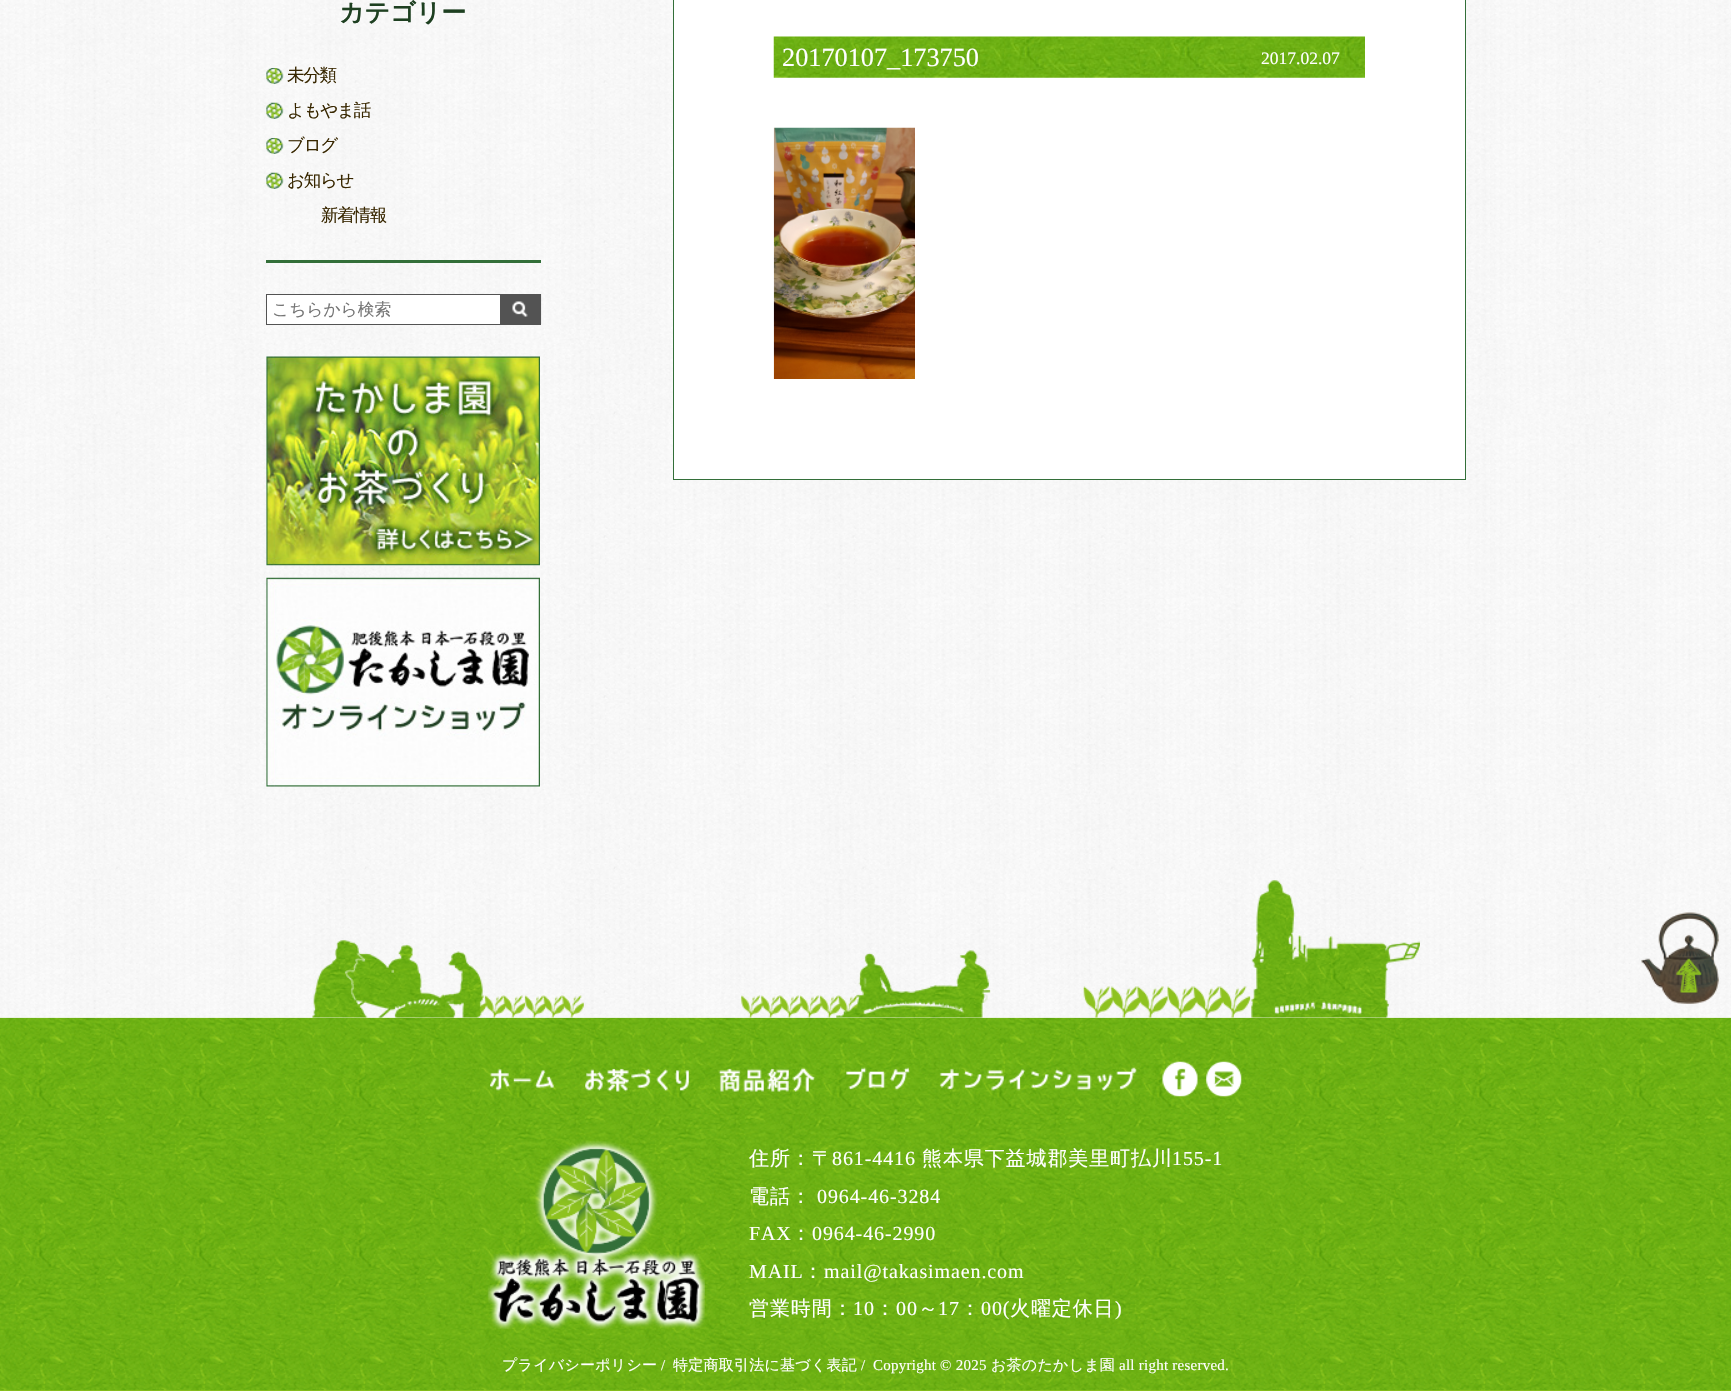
void draw(SkCanvas* canvas) {
    SkPaint paint;
    paint.setAntiAlias(true);
    auto face = [&](const char* family, int weight, float size, bool italic = false) {
        SkFontStyle style(weight, SkFontStyle::kNormal_Width,
            italic ? SkFontStyle::kItalic_Slant : SkFontStyle::kUpright_Slant);
        SkFont result(fontMgr->matchFamilyStyle(family, style), size);
        result.setSubpixel(true);
        return result;
    };
    auto write = [&](const char* s, float x, float y, const SkFont& font, SkColor color) {
        SkPaint ink(SkColor4f::FromColor(color));
        ink.setAntiAlias(true);
        canvas->drawString(s, x, y, font, ink);
    };
    auto writeSpaced = [&](const char* s, float x, float y, const SkFont& font, const SkPaint& ink, float letter, float word) {
        std::vector<SkGlyphID> glyphs(font.countText(s, strlen(s), SkTextEncoding::kUTF8));
        std::vector<float> xs(glyphs.size());
        font.textToGlyphs(s, strlen(s), SkTextEncoding::kUTF8, glyphs);
        font.getXPos(glyphs, xs, x);
        float extra = 0;
        for (size_t i = 0; i < glyphs.size(); i++) {
            xs[i] += extra;
            extra += letter + word * (glyphs[i] == font.unicharToGlyph(' '));
        }
        canvas->drawTextBlob(SkTextBlob::MakeFromPosHGlyphs(glyphs, xs, y, font), 0, 0, ink);
    };
    auto block = [&](float x, float y, float w, float h, SkColor color) {
        SkPaint ink(SkColor4f::FromColor(color));
        ink.setAntiAlias(true);
        canvas->drawRect(SkRect::MakeXYWH(x, y, w, h), ink);
    };
    auto paste = [&](const char* path, float x, float y, float w, float h) {
        auto image = SkImages::DeferredFromEncodedData(SkData::MakeFromFileName(path));
        canvas->drawImageRect(image, SkRect::MakeXYWH(x, y, w, h), SkSamplingOptions());
    };
    canvas->clear(SK_ColorWHITE);
    paste("pic13.png", 0, 1017, 1731, 374);
    paste("pic1.png", 0, 0, 1731, 1018);
    auto kFont1 = face("WenQuanYi Zen Hei", 700, 25);
    write("カテゴリー", 339, 21, kFont1, SkColorSetRGB(30, 64, 33));
    paste("pic2.png", 266, 68, 18, 16);
    auto kFont2 = face("WenQuanYi Zen Hei", 500, 17.5f);
    paint.setColor(SkColorSetRGB(56, 39, 0));
    writeSpaced("未分類", 287, 81, kFont2, paint, -1.25f, 0);
    paste("pic3.png", 266, 102, 18, 17);
    writeSpaced("よもやま話", 287, 116, kFont2, paint, -1.25f, 0);
    paste("pic4.png", 266, 138, 18, 16);
    writeSpaced("ブログ", 287, 151, kFont2, paint, -1.25f, 0);
    paste("pic5.png", 266, 172, 18, 17);
    writeSpaced("お知らせ", 287, 186, kFont2, paint, -1.25f, 0);
    writeSpaced("新着情報", 321, 221, kFont2, paint, -1.25f, 0);
    block(266, 260, 275, 3, SkColorSetRGB(51, 111, 57));
    block(267, 295, 233, 29, SK_ColorWHITE);
    paint.setStyle(SkPaint::kStroke_Style);
    paint.setStrokeWidth(1);
    paint.setColor(SkColorSetRGB(83, 83, 83));
    canvas->drawRect(SkRect::MakeXYWH(266.5f, 294.5f, 274, 30), paint);
    auto kFont3 = face("WenQuanYi Zen Hei", 500, 16.75f);
    write("こちらから検索", 272, 315, kFont3, SkColorSetRGB(117, 117, 117));
    paste("pic6.png", 500, 294, 42, 30);
    paste("pic7.png", 266, 356, 274, 210);
    paste("pic8.png", 266, 577, 274, 210);
    paint.setStyle(SkPaint::kFill_Style);
    paint.setColor(SK_ColorWHITE);
    canvas->drawRect(SkRect::MakeXYWH(673.5f, -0.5f, 792, 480), paint);
    paint.setStyle(SkPaint::kStroke_Style);
    paint.setColor(SkColorSetRGB(51, 111, 57));
    canvas->drawRect(SkRect::MakeXYWH(673.5f, -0.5f, 792, 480), paint);
    paste("pic9.png", 773, 36, 592, 42);
    auto kFont4 = face("Liberation Serif", 400, 26.25f);
    write("20170107_173750", 782, 66, kFont4, SK_ColorWHITE);
    auto kFont5 = face("Liberation Serif", 400, 17.5f);
    write("2017.02.07", 1261, 64, kFont5, SK_ColorWHITE);
    paste("pic10.png", 773, 127, 142, 252);
    paste("pic11.png", 312, 880, 1108, 138);
    paste("pic12.png", 1641, 912, 78, 92);
    paste("pic14.png", 490, 1068, 64, 23);
    paste("pic15.png", 585, 1068, 104, 24);
    paste("pic16.png", 718, 1067, 98, 25);
    paste("pic17.png", 846, 1067, 64, 24);
    paste("pic18.png", 939, 1067, 198, 24);
    paste("pic19.png", 1162, 1061, 36, 36);
    paste("pic20.png", 1206, 1061, 36, 36);
    paste("pic21.png", 487, 1141, 218, 188);
    auto kFont6 = face("WenQuanYi Zen Hei", 500, 20);
    paint.setStyle(SkPaint::kFill_Style);
    paint.setColor(SK_ColorWHITE);
    writeSpaced("住所：〒", 749, 1165, kFont6, paint, 0.9f, 0);
    auto kFont7 = face("Liberation Serif", 400, 20);
    writeSpaced("861-4416", 832, 1165, kFont7, paint, 0.9f, 0);
    writeSpaced("熊本県下益城郡美里町払川", 922, 1165, kFont6, paint, 0.9f, 0);
    writeSpaced("155-1", 1172, 1165, kFont7, paint, 0.9f, 0);
    writeSpaced("電話：", 749, 1203, kFont6, paint, 0.9f, 0);
    writeSpaced("0964-46-3284", 817, 1203, kFont7, paint, 0.9f, 0);
    writeSpaced("FAX", 749, 1240, kFont7, paint, 0.9f, 0);
    writeSpaced("：", 791, 1240, kFont6, paint, 0.9f, 0);
    writeSpaced("0964-46-2990", 812, 1240, kFont7, paint, 0.9f, 0);
    writeSpaced("MAIL", 749, 1278, kFont7, paint, 0.9f, 0);
    writeSpaced("：", 803, 1278, kFont6, paint, 0.9f, 0);
    writeSpaced("mail@takasimaen.com", 824, 1278, kFont7, paint, 0.9f, 0);
    writeSpaced("営業時間：", 749, 1315, kFont6, paint, 0.9f, 0);
    writeSpaced("10", 853, 1315, kFont7, paint, 0.9f, 0);
    writeSpaced("：", 875, 1315, kFont6, paint, 0.9f, 0);
    writeSpaced("00", 896, 1315, kFont7, paint, 0.9f, 0);
    writeSpaced("～", 918, 1315, kFont6, paint, 0.9f, 0);
    writeSpaced("17", 938, 1315, kFont7, paint, 0.9f, 0);
    writeSpaced("：", 960, 1315, kFont6, paint, 0.9f, 0);
    writeSpaced("00(", 981, 1315, kFont7, paint, 0.9f, 0);
    writeSpaced("火曜定休日", 1010, 1315, kFont6, paint, 0.9f, 0);
    writeSpaced(")", 1115, 1315, kFont7, paint, 0.9f, 0);
    auto kFont8 = face("WenQuanYi Zen Hei", 500, 15);
    writeSpaced("プライバシーポリシー", 502, 1370, kFont8, paint, 0.25f, 0);
    auto kFont9 = face("Liberation Serif", 400, 15);
    writeSpaced("/", 661, 1370, kFont9, paint, 0.25f, 0);
    writeSpaced("特定商取引法に基づく表記", 673, 1370, kFont8, paint, 0.25f, 0);
    writeSpaced("/", 861, 1370, kFont9, paint, 0.25f, 0);
    writeSpaced("Copyright © 2025", 873, 1370, kFont9, paint, 0.25f, 0);
    writeSpaced("お茶のたかしま園", 991, 1370, kFont8, paint, 0.25f, 0);
    writeSpaced("all right reserved.", 1119, 1370, kFont9, paint, 0.25f, 0);
}
